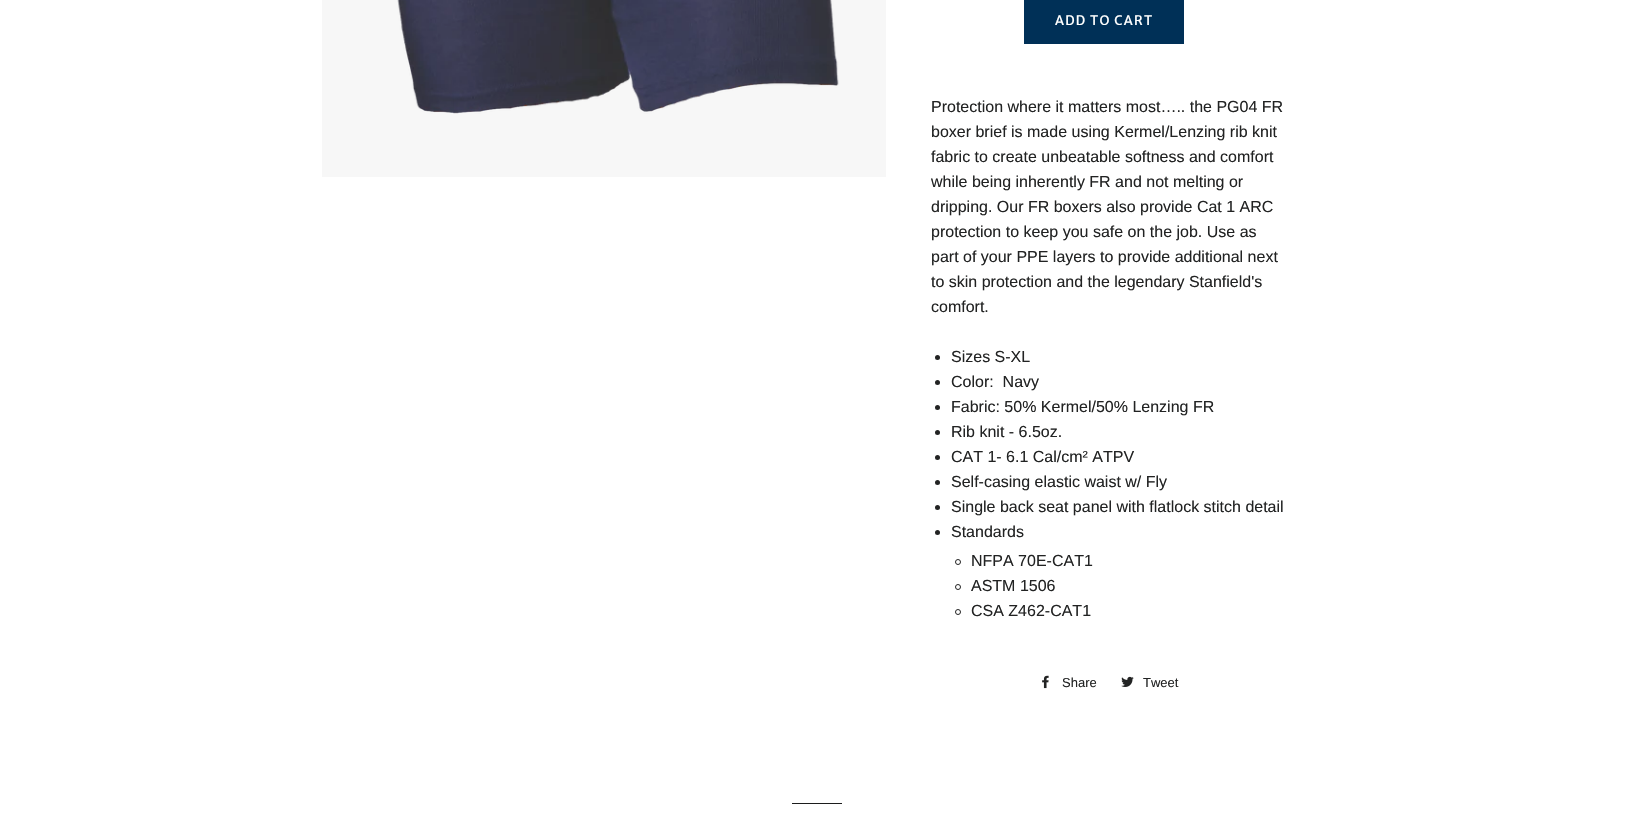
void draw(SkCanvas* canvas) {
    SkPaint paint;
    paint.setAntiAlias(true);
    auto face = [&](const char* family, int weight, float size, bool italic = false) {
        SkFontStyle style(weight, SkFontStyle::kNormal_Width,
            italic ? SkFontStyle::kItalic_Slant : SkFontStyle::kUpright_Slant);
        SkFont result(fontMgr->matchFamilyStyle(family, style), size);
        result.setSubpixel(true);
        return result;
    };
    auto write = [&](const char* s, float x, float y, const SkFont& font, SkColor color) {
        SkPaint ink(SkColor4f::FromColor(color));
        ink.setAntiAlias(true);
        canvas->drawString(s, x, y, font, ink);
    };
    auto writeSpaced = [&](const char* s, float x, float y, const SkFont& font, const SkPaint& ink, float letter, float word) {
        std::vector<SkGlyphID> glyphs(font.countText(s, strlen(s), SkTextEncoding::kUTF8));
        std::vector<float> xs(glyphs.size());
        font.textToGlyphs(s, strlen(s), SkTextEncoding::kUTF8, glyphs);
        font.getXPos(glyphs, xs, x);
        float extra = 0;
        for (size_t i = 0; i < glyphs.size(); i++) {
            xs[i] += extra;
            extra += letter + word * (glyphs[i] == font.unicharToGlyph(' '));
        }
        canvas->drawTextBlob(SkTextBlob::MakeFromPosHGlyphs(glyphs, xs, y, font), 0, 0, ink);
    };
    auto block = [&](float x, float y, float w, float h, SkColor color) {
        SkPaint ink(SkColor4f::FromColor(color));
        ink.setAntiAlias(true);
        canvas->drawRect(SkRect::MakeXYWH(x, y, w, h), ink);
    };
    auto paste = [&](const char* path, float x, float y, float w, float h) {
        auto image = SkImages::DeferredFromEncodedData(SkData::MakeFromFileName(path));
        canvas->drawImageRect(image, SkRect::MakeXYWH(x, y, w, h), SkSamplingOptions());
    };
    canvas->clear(SK_ColorWHITE);
    block(322, 0, 564, 177, SkColorSetRGB(247, 247, 247));
    paste("pic1.png", 397, 0, 442, 114);
    block(1024, 0, 160, 44, SkColorSetRGB(0, 48, 87));
    auto kFont1 = face("Merriweather Sans", 400, 13);
    paint.setColor(SK_ColorWHITE);
    writeSpaced("ADD TO CART", 1055, 25, kFont1, paint, 1.25f, 0);
    auto kFont2 = face("Arimo", 400, 16);
    write("Protection where it matters most….. the PG04 FR", 931, 112, kFont2, SkColorSetRGB(34, 35, 35));
    write("boxer brief is made using Kermel/Lenzing rib knit", 931, 137, kFont2, SkColorSetRGB(34, 35, 35));
    write("fabric to create unbeatable softness and comfort", 931, 162, kFont2, SkColorSetRGB(34, 35, 35));
    write("while being inherently FR and not melting or", 931, 187, kFont2, SkColorSetRGB(34, 35, 35));
    write("dripping. Our FR boxers also provide Cat 1 ARC", 931, 212, kFont2, SkColorSetRGB(34, 35, 35));
    write("protection to keep you safe on the job. Use as", 931, 237, kFont2, SkColorSetRGB(34, 35, 35));
    write("part of your PPE layers to provide additional next", 931, 262, kFont2, SkColorSetRGB(34, 35, 35));
    write("to skin protection and the legendary Stanfield's", 931, 287, kFont2, SkColorSetRGB(34, 35, 35));
    write("comfort.", 931, 312, kFont2, SkColorSetRGB(34, 35, 35));
    paint.setColor(SkColorSetRGB(34, 35, 35));
    canvas->drawCircle(937.5f, 357.5f, 2.5f, paint);
    write("Sizes S-XL", 951, 362, kFont2, SkColorSetRGB(34, 35, 35));
    canvas->drawCircle(937.5f, 382.5f, 2.5f, paint);
    write("Color:  Navy", 951, 387, kFont2, SkColorSetRGB(34, 35, 35));
    canvas->drawCircle(937.5f, 407.5f, 2.5f, paint);
    write("Fabric: 50% Kermel/50% Lenzing FR", 951, 412, kFont2, SkColorSetRGB(34, 35, 35));
    canvas->drawCircle(937.5f, 432.5f, 2.5f, paint);
    write("Rib knit - 6.5oz.", 951, 437, kFont2, SkColorSetRGB(34, 35, 35));
    canvas->drawCircle(937.5f, 457.5f, 2.5f, paint);
    write("CAT 1- 6.1 Cal/cm² ATPV", 951, 462, kFont2, SkColorSetRGB(34, 35, 35));
    canvas->drawCircle(937.5f, 482.5f, 2.5f, paint);
    write("Self-casing elastic waist w/ Fly", 951, 487, kFont2, SkColorSetRGB(34, 35, 35));
    canvas->drawCircle(937.5f, 507.5f, 2.5f, paint);
    write("Single back seat panel with flatlock stitch detail", 951, 512, kFont2, SkColorSetRGB(34, 35, 35));
    canvas->drawCircle(937.5f, 532.5f, 2.5f, paint);
    write("Standards", 951, 537, kFont2, SkColorSetRGB(34, 35, 35));
    paint.setStyle(SkPaint::kStroke_Style);
    paint.setStrokeWidth(1);
    canvas->drawCircle(958, 562, 2.5f, paint);
    write("NFPA 70E-CAT1", 971, 566, kFont2, SkColorSetRGB(34, 35, 35));
    canvas->drawCircle(958, 587, 2.5f, paint);
    write("ASTM 1506", 971, 591, kFont2, SkColorSetRGB(34, 35, 35));
    canvas->drawCircle(958, 612, 2.5f, paint);
    write("CSA Z462-CAT1", 971, 616, kFont2, SkColorSetRGB(34, 35, 35));
    paste("pic2.png", 1042, 675, 7, 14);
    auto kFont3 = face("Arimo", 400, 13);
    write("Share", 1062, 687, kFont3, SkColorSetRGB(34, 35, 35));
    paste("pic3.png", 1121, 676, 13, 11);
    write("Tweet", 1143, 687, kFont3, SkColorSetRGB(34, 35, 35));
    block(792, 803, 50, 1, SkColorSetRGB(28, 29, 29));
}
